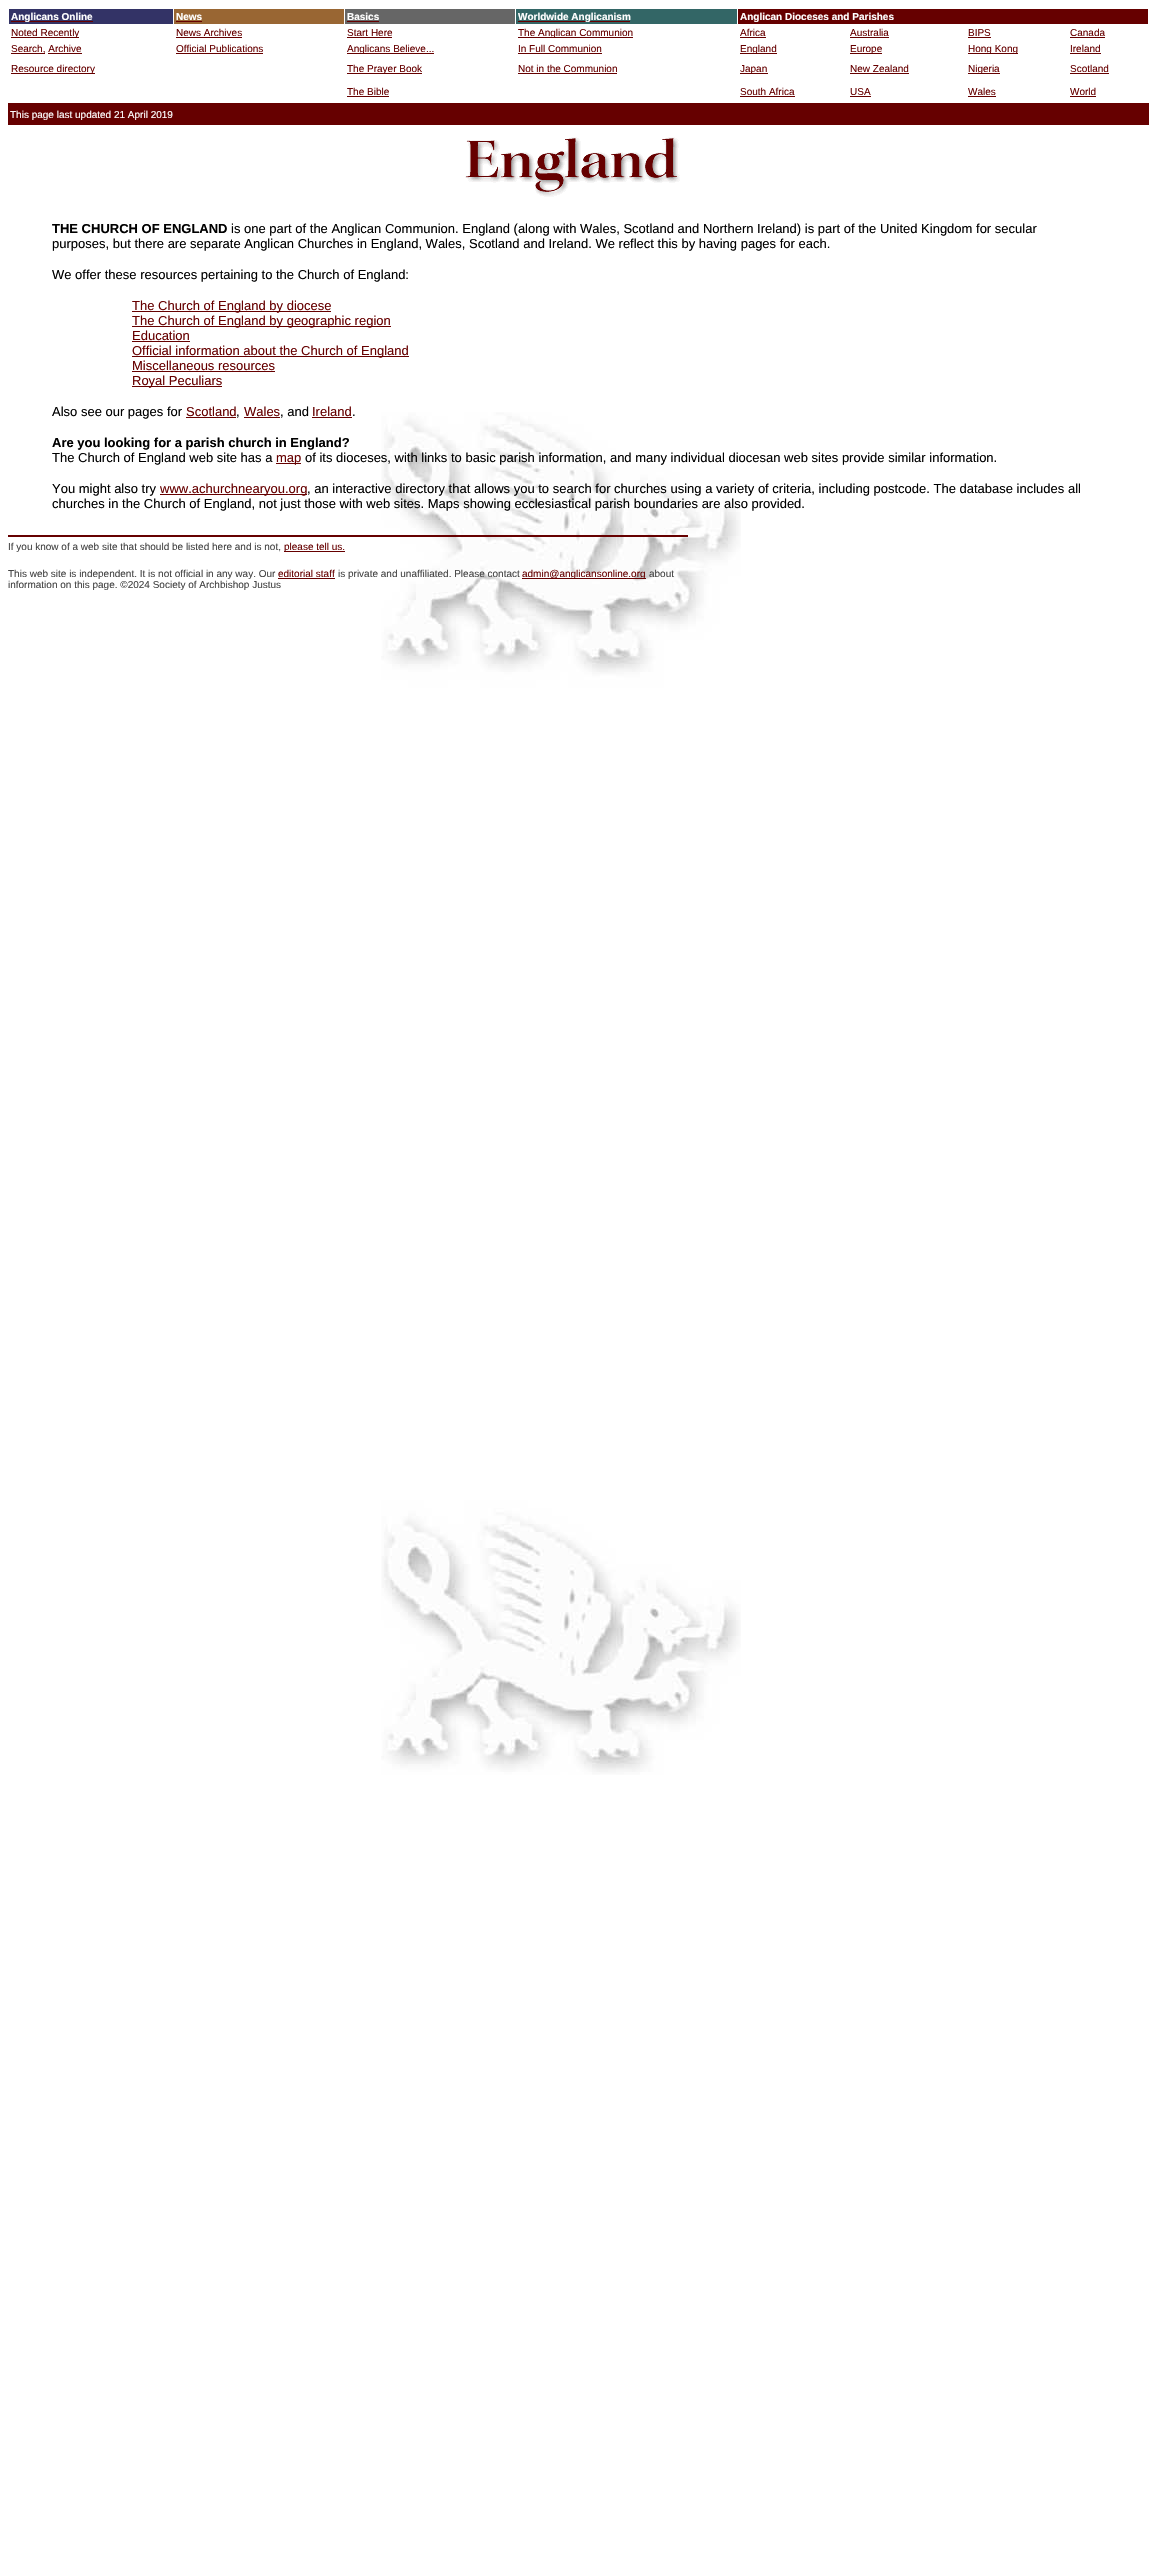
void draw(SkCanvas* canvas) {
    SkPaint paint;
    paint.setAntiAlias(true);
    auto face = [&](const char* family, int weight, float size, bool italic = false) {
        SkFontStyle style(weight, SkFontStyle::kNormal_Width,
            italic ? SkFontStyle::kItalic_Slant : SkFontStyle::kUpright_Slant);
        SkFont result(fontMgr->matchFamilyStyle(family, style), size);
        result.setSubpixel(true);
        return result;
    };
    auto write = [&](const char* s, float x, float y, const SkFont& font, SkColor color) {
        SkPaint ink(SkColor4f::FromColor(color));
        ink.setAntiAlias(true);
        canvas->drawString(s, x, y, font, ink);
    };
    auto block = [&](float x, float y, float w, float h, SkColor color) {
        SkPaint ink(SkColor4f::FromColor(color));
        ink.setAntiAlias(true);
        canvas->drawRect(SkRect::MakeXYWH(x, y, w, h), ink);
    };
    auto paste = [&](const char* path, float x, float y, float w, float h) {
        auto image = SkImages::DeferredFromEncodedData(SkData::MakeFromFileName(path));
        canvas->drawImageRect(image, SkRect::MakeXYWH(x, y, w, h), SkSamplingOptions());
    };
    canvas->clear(SK_ColorWHITE);
    paste("pic1.png", 381, 412, 360, 1363);
    block(9, 9, 164, 15, SkColorSetRGB(51, 51, 102));
    block(11, 21, 82, 1, SkColorSetRGB(102, 0, 0));
    auto kFont1 = face("Liberation Sans", 700, 10);
    write("Anglicans Online", 11, 20, kFont1, SK_ColorWHITE);
    block(174, 9, 170, 15, SkColorSetRGB(153, 102, 51));
    write("News", 176, 20, kFont1, SK_ColorWHITE);
    block(176, 21, 26, 1, SkColorSetRGB(102, 0, 0));
    block(345, 9, 170, 15, SkColorSetRGB(102, 102, 102));
    write("Basics", 347, 20, kFont1, SK_ColorWHITE);
    block(347, 21, 32, 1, SkColorSetRGB(102, 0, 0));
    block(516, 9, 221, 15, SkColorSetRGB(51, 102, 102));
    block(518, 21, 112, 1, SkColorSetRGB(102, 0, 0));
    write("Worldwide Anglicanism", 518, 20, kFont1, SK_ColorWHITE);
    block(738, 9, 410, 15, SkColorSetRGB(102, 0, 0));
    write("Anglican Dioceses and Parishes", 740, 20, kFont1, SK_ColorWHITE);
    block(11, 37, 68, 1, SkColorSetRGB(102, 0, 0));
    auto kFont2 = face("Liberation Sans", 400, 10);
    write("Noted Recently", 11, 36, kFont2, SkColorSetRGB(102, 0, 0));
    write("News Archives", 176, 36, kFont2, SkColorSetRGB(102, 0, 0));
    block(176, 37, 66, 1, SkColorSetRGB(102, 0, 0));
    write("Start Here", 347, 36, kFont2, SkColorSetRGB(102, 0, 0));
    block(347, 37, 45, 1, SkColorSetRGB(102, 0, 0));
    block(518, 37, 115, 1, SkColorSetRGB(102, 0, 0));
    write("The Anglican Communion", 518, 36, kFont2, SkColorSetRGB(102, 0, 0));
    write("Africa", 740, 36, kFont2, SkColorSetRGB(102, 0, 0));
    block(740, 37, 26, 1, SkColorSetRGB(102, 0, 0));
    write("Australia", 850, 36, kFont2, SkColorSetRGB(102, 0, 0));
    block(850, 37, 39, 1, SkColorSetRGB(102, 0, 0));
    write("BIPS", 968, 36, kFont2, SkColorSetRGB(102, 0, 0));
    block(968, 37, 23, 1, SkColorSetRGB(102, 0, 0));
    write("Canada", 1070, 36, kFont2, SkColorSetRGB(102, 0, 0));
    block(1070, 37, 35, 1, SkColorSetRGB(102, 0, 0));
    block(11, 53, 34, 1, SkColorSetRGB(102, 0, 0));
    write("Search, Archive", 11, 52, kFont2, SkColorSetRGB(102, 0, 0));
    block(48, 53, 34, 1, SkColorSetRGB(102, 0, 0));
    write("Official Publications", 176, 52, kFont2, SkColorSetRGB(102, 0, 0));
    block(176, 53, 87, 1, SkColorSetRGB(102, 0, 0));
    block(347, 53, 87, 1, SkColorSetRGB(102, 0, 0));
    write("Anglicans Believe...", 347, 52, kFont2, SkColorSetRGB(102, 0, 0));
    write("In Full Communion", 518, 52, kFont2, SkColorSetRGB(102, 0, 0));
    block(518, 53, 84, 1, SkColorSetRGB(102, 0, 0));
    block(740, 53, 37, 1, SkColorSetRGB(102, 0, 0));
    write("England", 740, 52, kFont2, SkColorSetRGB(102, 0, 0));
    block(850, 53, 32, 1, SkColorSetRGB(102, 0, 0));
    write("Europe", 850, 52, kFont2, SkColorSetRGB(102, 0, 0));
    block(968, 53, 50, 1, SkColorSetRGB(102, 0, 0));
    write("Hong Kong", 968, 52, kFont2, SkColorSetRGB(102, 0, 0));
    write("Ireland", 1070, 52, kFont2, SkColorSetRGB(102, 0, 0));
    block(1070, 53, 31, 1, SkColorSetRGB(102, 0, 0));
    block(11, 73, 84, 1, SkColorSetRGB(102, 0, 0));
    write("Resource directory", 11, 72, kFont2, SkColorSetRGB(102, 0, 0));
    block(347, 73, 75, 1, SkColorSetRGB(102, 0, 0));
    write("The Prayer Book", 347, 72, kFont2, SkColorSetRGB(102, 0, 0));
    write("Not in the Communion", 518, 72, kFont2, SkColorSetRGB(102, 0, 0));
    block(518, 73, 99, 1, SkColorSetRGB(102, 0, 0));
    block(740, 73, 28, 1, SkColorSetRGB(102, 0, 0));
    write("Japan", 740, 72, kFont2, SkColorSetRGB(102, 0, 0));
    write("New Zealand", 850, 72, kFont2, SkColorSetRGB(102, 0, 0));
    block(850, 73, 59, 1, SkColorSetRGB(102, 0, 0));
    block(968, 73, 32, 1, SkColorSetRGB(102, 0, 0));
    write("Nigeria", 968, 72, kFont2, SkColorSetRGB(102, 0, 0));
    write("Scotland", 1070, 72, kFont2, SkColorSetRGB(102, 0, 0));
    block(1070, 73, 39, 1, SkColorSetRGB(102, 0, 0));
    write("The Bible", 347, 95, kFont2, SkColorSetRGB(102, 0, 0));
    block(347, 96, 42, 1, SkColorSetRGB(102, 0, 0));
    write("South Africa", 740, 95, kFont2, SkColorSetRGB(102, 0, 0));
    block(740, 96, 55, 1, SkColorSetRGB(102, 0, 0));
    write("USA", 850, 95, kFont2, SkColorSetRGB(102, 0, 0));
    block(850, 96, 21, 1, SkColorSetRGB(102, 0, 0));
    write("Wales", 968, 95, kFont2, SkColorSetRGB(102, 0, 0));
    block(968, 96, 28, 1, SkColorSetRGB(102, 0, 0));
    write("World", 1070, 95, kFont2, SkColorSetRGB(102, 0, 0));
    block(1070, 96, 26, 1, SkColorSetRGB(102, 0, 0));
    block(8, 103, 1141, 22, SkColorSetRGB(102, 0, 0));
    write("This page last updated 21 April 2019", 10, 118, kFont2, SK_ColorWHITE);
    paste("pic2.png", 465, 137, 215, 60);
    auto kFont3 = face("Liberation Sans", 700, 13);
    write("THE CHURCH OF ENGLAND", 52, 233, kFont3, SK_ColorBLACK);
    auto kFont4 = face("Liberation Sans", 400, 13);
    write("is one part of the Anglican Communion. England (along with Wales, Scotland and Northern Ireland) is part of the United Kingdom for secular", 231, 233, kFont4, SK_ColorBLACK);
    write("purposes, but there are separate Anglican Churches in England, Wales, Scotland and Ireland. We reflect this by having pages for each.", 52, 248, kFont4, SK_ColorBLACK);
    write("We offer these resources pertaining to the Church of England:", 52, 279, kFont4, SK_ColorBLACK);
    block(132, 311, 199, 1, SkColorSetRGB(102, 0, 0));
    write("The Church of England by diocese", 132, 310, kFont4, SkColorSetRGB(102, 0, 0));
    block(132, 326, 259, 1, SkColorSetRGB(102, 0, 0));
    write("The Church of England by geographic region", 132, 325, kFont4, SkColorSetRGB(102, 0, 0));
    write("Education", 132, 340, kFont4, SkColorSetRGB(102, 0, 0));
    block(132, 341, 58, 1, SkColorSetRGB(102, 0, 0));
    block(132, 356, 277, 1, SkColorSetRGB(102, 0, 0));
    write("Official information about the Church of England", 132, 355, kFont4, SkColorSetRGB(102, 0, 0));
    write("Miscellaneous resources", 132, 370, kFont4, SkColorSetRGB(102, 0, 0));
    block(132, 371, 143, 1, SkColorSetRGB(102, 0, 0));
    block(132, 386, 90, 1, SkColorSetRGB(102, 0, 0));
    write("Royal Peculiars", 132, 385, kFont4, SkColorSetRGB(102, 0, 0));
    write("Also see our pages for", 52, 416, kFont4, SK_ColorBLACK);
    write("Scotland", 186, 416, kFont4, SkColorSetRGB(102, 0, 0));
    write(",", 236, 416, kFont4, SK_ColorBLACK);
    block(186, 417, 50, 1, SkColorSetRGB(102, 0, 0));
    block(244, 417, 36, 1, SkColorSetRGB(102, 0, 0));
    write("Wales", 244, 416, kFont4, SkColorSetRGB(102, 0, 0));
    write(", and", 280, 416, kFont4, SK_ColorBLACK);
    write("Ireland", 312, 416, kFont4, SkColorSetRGB(102, 0, 0));
    write(".", 352, 416, kFont4, SK_ColorBLACK);
    block(312, 417, 40, 1, SkColorSetRGB(102, 0, 0));
    write("Are you looking for a parish church in England?", 52, 447, kFont3, SK_ColorBLACK);
    write("The Church of England web site has a", 52, 462, kFont4, SK_ColorBLACK);
    block(276, 463, 25, 1, SkColorSetRGB(102, 0, 0));
    write("map", 276, 462, kFont4, SkColorSetRGB(102, 0, 0));
    write("of its dioceses, with links to basic parish information, and many individual diocesan web sites provide similar information.", 305, 462, kFont4, SK_ColorBLACK);
    write("You might also try", 52, 493, kFont4, SK_ColorBLACK);
    block(160, 494, 147, 1, SkColorSetRGB(102, 0, 0));
    write("www.achurchnearyou.org", 160, 493, kFont4, SkColorSetRGB(102, 0, 0));
    write(", an interactive directory that allows you to search for churches using a variety of criteria, including postcode. The database includes all", 307, 493, kFont4, SK_ColorBLACK);
    write("churches in the Church of England, not just those with web sites. Maps showing ecclesiastical parish boundaries are also provided.", 52, 508, kFont4, SK_ColorBLACK);
    block(8, 535, 680, 2, SkColorSetRGB(102, 0, 0));
    write("If you know of a web site that should be listed here and is not,", 8, 550, kFont2, SkColorSetRGB(68, 68, 68));
    block(284, 551, 61, 1, SkColorSetRGB(102, 0, 0));
    write("please tell us.", 284, 550, kFont2, SkColorSetRGB(102, 0, 0));
    write("This web site is independent. It is not official in any way. Our", 8, 577, kFont2, SkColorSetRGB(68, 68, 68));
    block(278, 578, 57, 1, SkColorSetRGB(102, 0, 0));
    write("editorial staff", 278, 577, kFont2, SkColorSetRGB(102, 0, 0));
    write("is private and unaffiliated. Please contact", 338, 577, kFont2, SkColorSetRGB(68, 68, 68));
    block(522, 578, 124, 1, SkColorSetRGB(102, 0, 0));
    write("admin@anglicansonline.org", 522, 577, kFont2, SkColorSetRGB(102, 0, 0));
    write("about", 649, 577, kFont2, SkColorSetRGB(68, 68, 68));
    write("information on this page. ©2024 Society of Archbishop Justus", 8, 588, kFont2, SkColorSetRGB(68, 68, 68));
}
